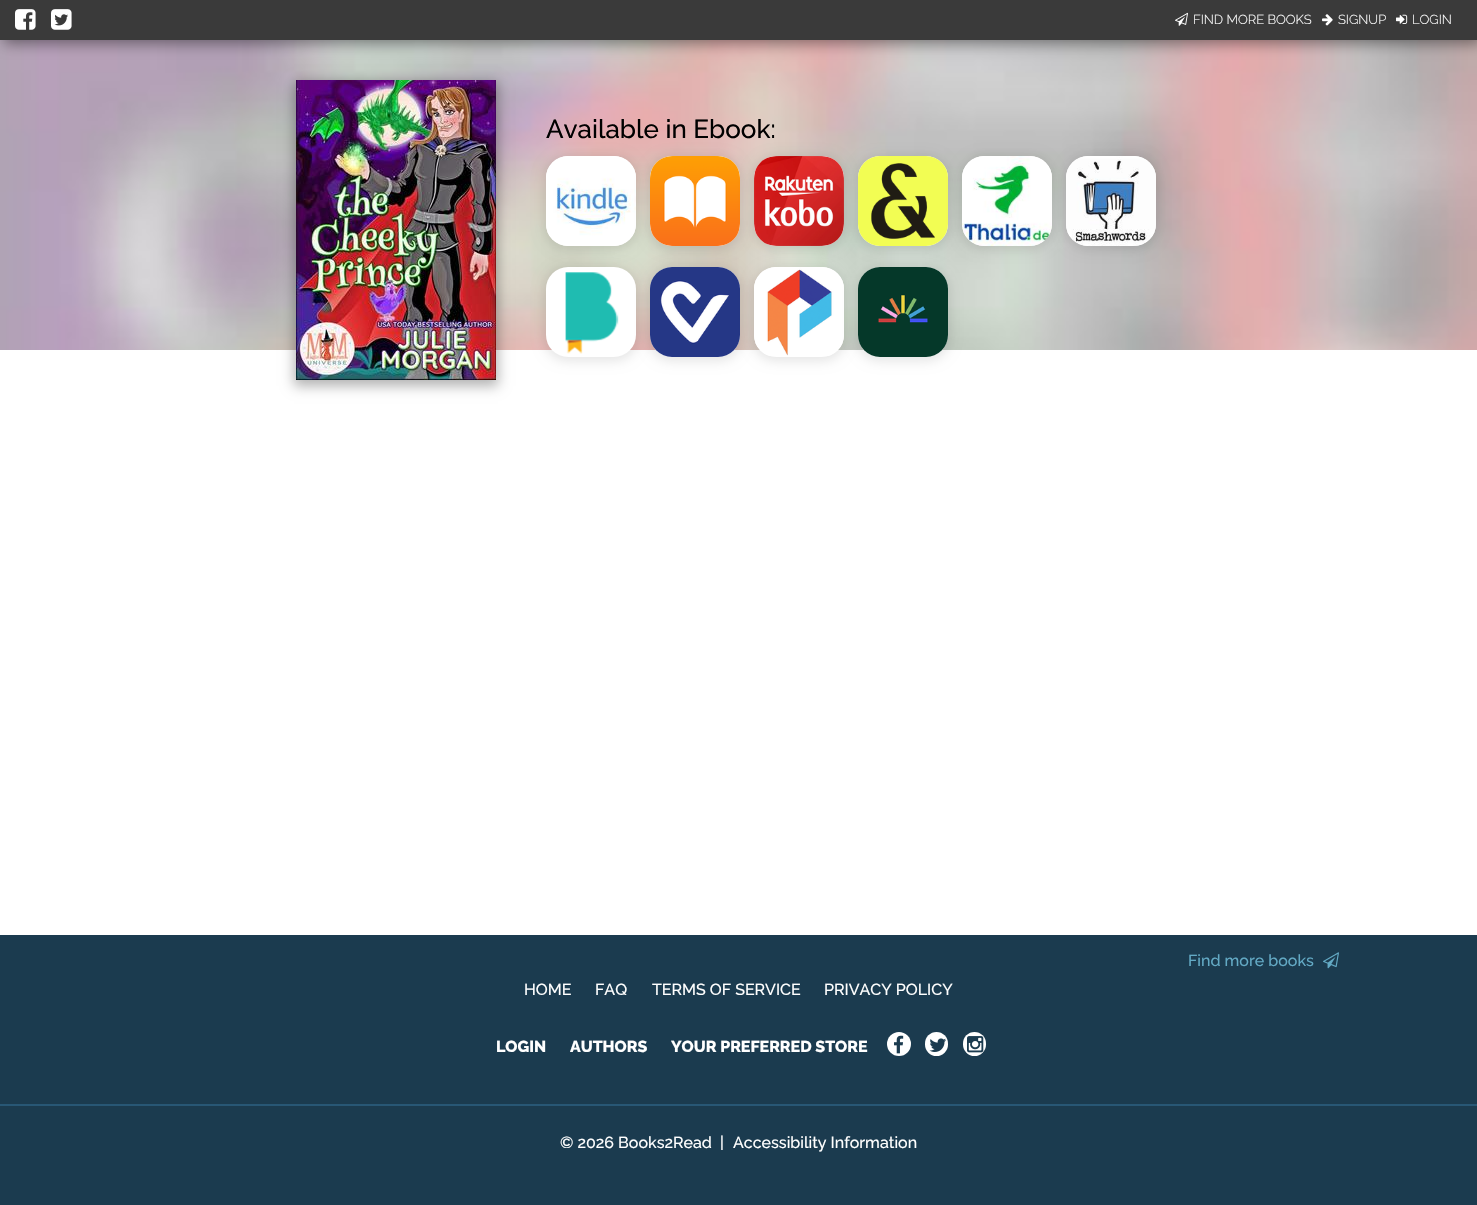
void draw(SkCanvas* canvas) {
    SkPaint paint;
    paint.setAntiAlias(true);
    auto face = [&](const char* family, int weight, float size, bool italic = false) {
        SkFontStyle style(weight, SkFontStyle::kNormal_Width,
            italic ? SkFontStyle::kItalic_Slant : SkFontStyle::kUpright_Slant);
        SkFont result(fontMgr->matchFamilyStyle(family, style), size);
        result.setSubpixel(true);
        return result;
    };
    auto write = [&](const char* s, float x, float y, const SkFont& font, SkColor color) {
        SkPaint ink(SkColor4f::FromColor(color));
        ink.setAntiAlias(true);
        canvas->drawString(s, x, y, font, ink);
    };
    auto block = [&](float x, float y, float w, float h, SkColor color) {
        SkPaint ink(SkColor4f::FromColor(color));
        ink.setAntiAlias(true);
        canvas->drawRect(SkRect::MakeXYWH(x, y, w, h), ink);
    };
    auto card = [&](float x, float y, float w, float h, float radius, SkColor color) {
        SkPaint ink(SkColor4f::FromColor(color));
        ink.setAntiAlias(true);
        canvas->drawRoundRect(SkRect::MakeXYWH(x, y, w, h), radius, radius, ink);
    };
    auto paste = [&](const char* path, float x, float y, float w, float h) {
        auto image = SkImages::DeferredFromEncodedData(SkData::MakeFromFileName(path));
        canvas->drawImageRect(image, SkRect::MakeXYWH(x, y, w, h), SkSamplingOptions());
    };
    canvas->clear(SK_ColorWHITE);
    paste("pic1.png", 0, 40, 1477, 310);
    paint.setColor(SkColorSetARGB(102, 0, 0, 0));
    paint.setMaskFilter(SkMaskFilter::MakeBlur(kNormal_SkBlurStyle, 7));
    canvas->drawRect(SkRect::MakeXYWH(4, 4, 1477, 40), paint);
    paint.setMaskFilter(nullptr);
    block(0, 0, 1477, 40, SkColorSetRGB(58, 58, 58));
    paste("pic2.png", 15, 9, 21, 21);
    paste("pic3.png", 51, 9, 21, 21);
    paste("pic4.png", 1175, 12, 13, 14);
    auto kFont1 = face("Raleway", 300, 13);
    write("FIND MORE BOOKS", 1193, 24, kFont1, SK_ColorWHITE);
    paste("pic5.png", 1322, 14, 11, 12);
    write("SIGNUP", 1338, 24, kFont1, SK_ColorWHITE);
    paste("pic6.png", 1396, 14, 12, 10);
    write("LOGIN", 1412, 24, kFont1, SK_ColorWHITE);
    paint.setColor(SkColorSetARGB(77, 0, 0, 0));
    paint.setMaskFilter(SkMaskFilter::MakeBlur(kNormal_SkBlurStyle, 6));
    canvas->drawRect(SkRect::MakeXYWH(294, 82, 204, 304), paint);
    paint.setMaskFilter(nullptr);
    paste("pic7.png", 296, 80, 200, 300);
    paint.setColor(SkColorSetARGB(26, 0, 0, 0));
    paint.setMaskFilter(SkMaskFilter::MakeBlur(kNormal_SkBlurStyle, 6));
    canvas->drawRoundRect(SkRect::MakeXYWH(544, 156, 94, 94), 24, 24, paint);
    paint.setMaskFilter(nullptr);
    card(546, 156, 90, 90, 22, SK_ColorWHITE);
    paste("pic8.png", 546, 156, 90, 90);
    paint.setMaskFilter(SkMaskFilter::MakeBlur(kNormal_SkBlurStyle, 6));
    canvas->drawRoundRect(SkRect::MakeXYWH(648, 156, 94, 94), 24, 24, paint);
    paint.setMaskFilter(nullptr);
    card(650, 156, 90, 90, 22, SK_ColorWHITE);
    paste("pic9.png", 650, 156, 90, 90);
    paint.setMaskFilter(SkMaskFilter::MakeBlur(kNormal_SkBlurStyle, 6));
    canvas->drawRoundRect(SkRect::MakeXYWH(752, 156, 94, 94), 24, 24, paint);
    paint.setMaskFilter(nullptr);
    auto kFont2 = face("Raleway", 500, 26);
    write("Available in Ebook:", 546, 138, kFont2, SK_ColorBLACK);
    card(754, 156, 90, 90, 22, SK_ColorWHITE);
    paste("pic10.png", 754, 156, 90, 90);
    paint.setMaskFilter(SkMaskFilter::MakeBlur(kNormal_SkBlurStyle, 6));
    canvas->drawRoundRect(SkRect::MakeXYWH(856, 156, 94, 94), 24, 24, paint);
    paint.setMaskFilter(nullptr);
    card(858, 156, 90, 90, 22, SK_ColorWHITE);
    paste("pic11.png", 858, 156, 90, 90);
    paint.setMaskFilter(SkMaskFilter::MakeBlur(kNormal_SkBlurStyle, 6));
    canvas->drawRoundRect(SkRect::MakeXYWH(960, 156, 94, 94), 24, 24, paint);
    paint.setMaskFilter(nullptr);
    card(962, 156, 90, 90, 22, SK_ColorWHITE);
    paste("pic12.png", 962, 156, 90, 90);
    paint.setMaskFilter(SkMaskFilter::MakeBlur(kNormal_SkBlurStyle, 6));
    canvas->drawRoundRect(SkRect::MakeXYWH(1064, 156, 94, 94), 24, 24, paint);
    paint.setMaskFilter(nullptr);
    card(1066, 156, 90, 90, 22, SK_ColorWHITE);
    paste("pic13.png", 1066, 156, 90, 90);
    paint.setMaskFilter(SkMaskFilter::MakeBlur(kNormal_SkBlurStyle, 6));
    canvas->drawRoundRect(SkRect::MakeXYWH(544, 267, 94, 94), 24, 24, paint);
    paint.setMaskFilter(nullptr);
    card(546, 267, 90, 90, 22, SK_ColorWHITE);
    paint.setMaskFilter(SkMaskFilter::MakeBlur(kNormal_SkBlurStyle, 6));
    canvas->drawRoundRect(SkRect::MakeXYWH(648, 267, 94, 94), 24, 24, paint);
    paint.setMaskFilter(nullptr);
    card(650, 267, 90, 90, 22, SK_ColorWHITE);
    paste("pic14.png", 650, 267, 90, 90);
    paint.setMaskFilter(SkMaskFilter::MakeBlur(kNormal_SkBlurStyle, 6));
    canvas->drawRoundRect(SkRect::MakeXYWH(752, 267, 94, 94), 24, 24, paint);
    paint.setMaskFilter(nullptr);
    card(754, 267, 90, 90, 22, SK_ColorWHITE);
    paste("pic15.png", 754, 267, 90, 89);
    paint.setMaskFilter(SkMaskFilter::MakeBlur(kNormal_SkBlurStyle, 6));
    canvas->drawRoundRect(SkRect::MakeXYWH(856, 267, 94, 94), 24, 24, paint);
    paint.setMaskFilter(nullptr);
    card(858, 267, 90, 90, 22, SK_ColorWHITE);
    paste("pic16.png", 565, 272, 54, 82);
    paste("pic17.png", 858, 267, 90, 90);
    block(0, 935, 1477, 270, SkColorSetRGB(27, 59, 79));
    auto kFont3 = face("Raleway", 500, 16);
    write("Find more books", 1188, 966, kFont3, SkColorSetRGB(99, 170, 197));
    paste("pic18.png", 1323, 952, 16, 17);
    write("HOME", 524, 995, kFont3, SK_ColorWHITE);
    write("FAQ", 595, 995, kFont3, SK_ColorWHITE);
    write("TERMS OF SERVICE", 652, 995, kFont3, SK_ColorWHITE);
    write("PRIVACY POLICY", 824, 995, kFont3, SK_ColorWHITE);
    auto kFont4 = face("Raleway", 800, 16);
    write("LOGIN", 496, 1052, kFont4, SK_ColorWHITE);
    write("AUTHORS", 570, 1052, kFont4, SK_ColorWHITE);
    write("YOUR PREFERRED STORE", 671, 1052, kFont4, SK_ColorWHITE);
    paint.setColor(SK_ColorWHITE);
    canvas->drawCircle(899, 1044, 12, paint);
    paste("pic19.png", 894, 1035, 10, 19);
    card(925, 1032, 23, 24, 11.5f, SK_ColorWHITE);
    paste("pic20.png", 929, 1038, 17, 14);
    card(963, 1032, 23, 24, 11.5f, SK_ColorWHITE);
    paste("pic21.png", 967, 1036, 17, 17);
    block(0, 1104, 1477, 2, SkColorSetRGB(40, 87, 117));
    write("© 2026 Books2Read", 560, 1148, kFont3, SK_ColorWHITE);
    write("|", 720, 1148, kFont3, SK_ColorWHITE);
    write("Accessibility Information", 733, 1148, kFont3, SK_ColorWHITE);
}
